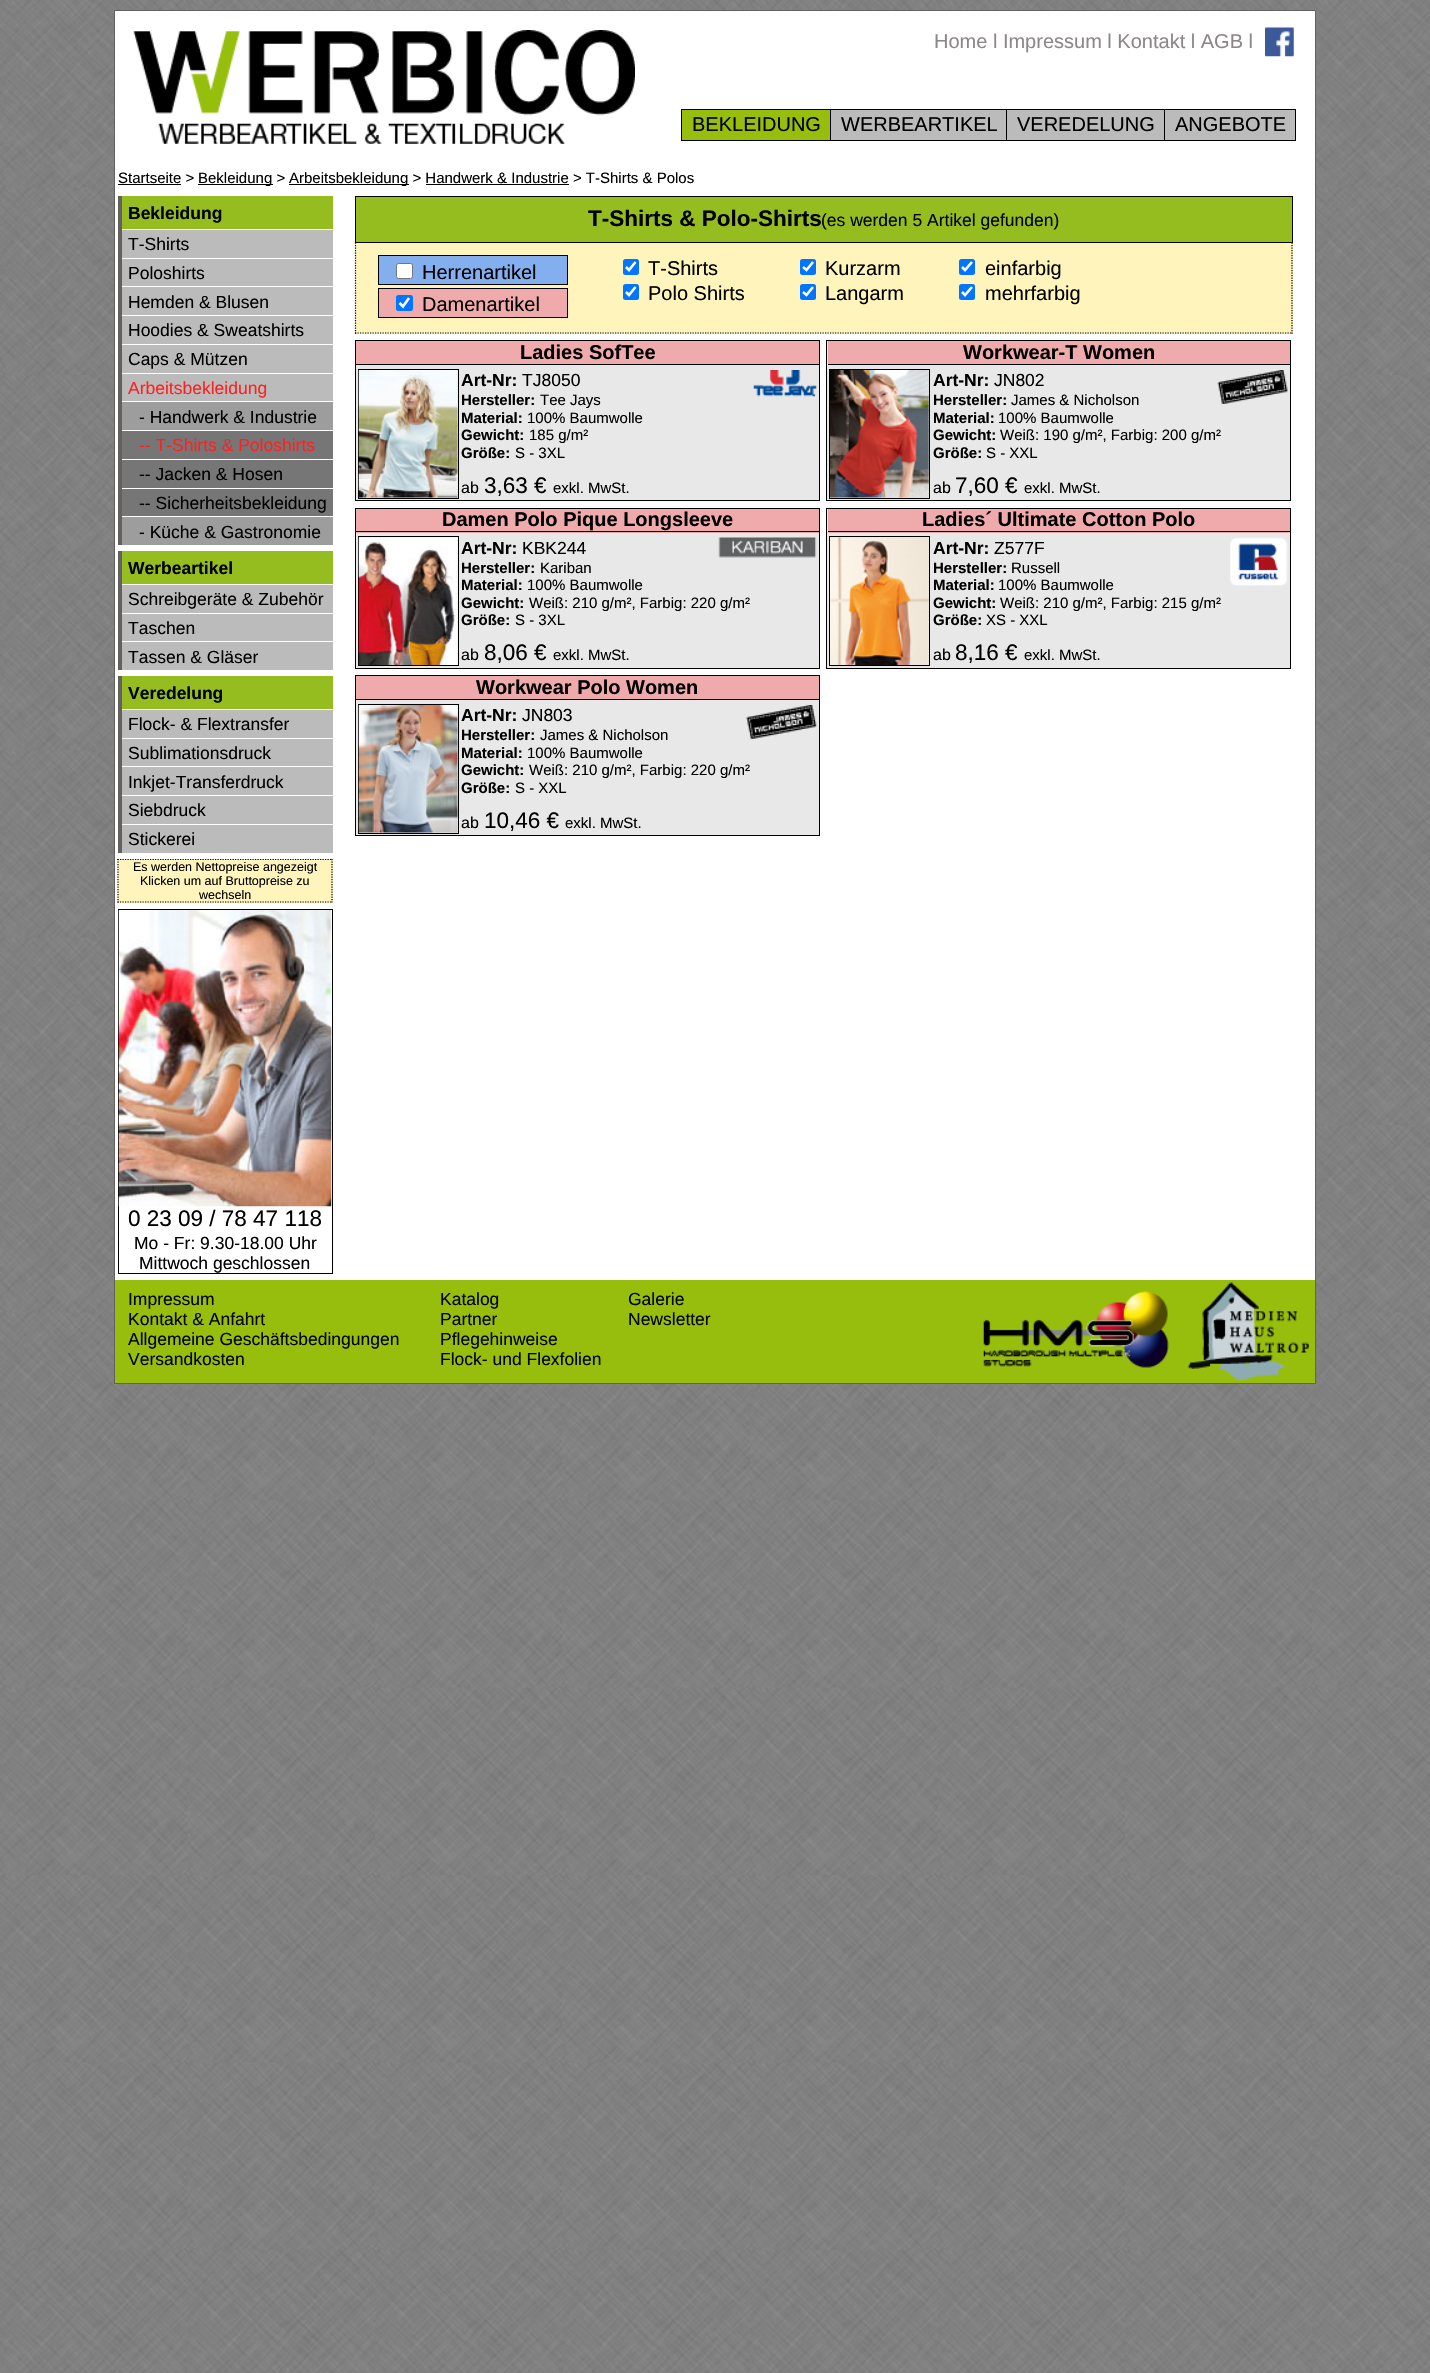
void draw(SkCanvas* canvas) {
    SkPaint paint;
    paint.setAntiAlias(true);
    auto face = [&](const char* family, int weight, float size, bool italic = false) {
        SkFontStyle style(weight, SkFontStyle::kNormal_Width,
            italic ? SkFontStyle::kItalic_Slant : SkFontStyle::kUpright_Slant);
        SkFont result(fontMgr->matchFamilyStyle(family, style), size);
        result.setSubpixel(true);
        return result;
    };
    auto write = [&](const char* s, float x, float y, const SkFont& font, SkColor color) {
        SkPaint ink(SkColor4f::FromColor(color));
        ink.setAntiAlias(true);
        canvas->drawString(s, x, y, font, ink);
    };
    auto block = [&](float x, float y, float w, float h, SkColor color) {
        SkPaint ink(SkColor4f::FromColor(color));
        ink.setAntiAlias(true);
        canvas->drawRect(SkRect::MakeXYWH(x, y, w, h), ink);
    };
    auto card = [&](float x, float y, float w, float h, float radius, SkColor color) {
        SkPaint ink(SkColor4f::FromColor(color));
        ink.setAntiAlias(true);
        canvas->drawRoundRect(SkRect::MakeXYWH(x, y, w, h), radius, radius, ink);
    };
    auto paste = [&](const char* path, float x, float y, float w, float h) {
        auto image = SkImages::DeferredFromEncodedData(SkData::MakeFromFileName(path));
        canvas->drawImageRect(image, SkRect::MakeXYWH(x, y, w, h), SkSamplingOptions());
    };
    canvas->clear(SK_ColorWHITE);
    paste("pic1.png", 0, 0, 1430, 2373);
    block(115, 11, 1200, 1269, SK_ColorWHITE);
    paint.setStyle(SkPaint::kStroke_Style);
    paint.setStrokeWidth(1);
    paint.setColor(SkColorSetRGB(99, 96, 96));
    canvas->drawRect(SkRect::MakeXYWH(114.5f, 10.5f, 1201, 1373), paint);
    paste("pic2.png", 133, 30, 502, 114);
    auto kFont1 = face("Liberation Sans", 400, 20);
    write("Home l Impressum l Kontakt l AGB l", 934, 48, kFont1, SkColorSetRGB(140, 136, 136));
    paste("pic3.png", 1265, 27, 29, 30);
    paint.setStyle(SkPaint::kFill_Style);
    paint.setColor(SkColorSetRGB(151, 190, 13));
    canvas->drawRect(SkRect::MakeXYWH(681.5f, 109.5f, 149, 31), paint);
    paint.setStyle(SkPaint::kStroke_Style);
    paint.setColor(SK_ColorBLACK);
    canvas->drawRect(SkRect::MakeXYWH(681.5f, 109.5f, 149, 31), paint);
    write("BEKLEIDUNG", 692, 131, kFont1, SK_ColorBLACK);
    block(831, 110, 175, 30, SkColorSetRGB(188, 187, 187));
    canvas->drawRect(SkRect::MakeXYWH(830.5f, 109.5f, 177, 31), paint);
    write("WERBEARTIKEL", 841, 131, kFont1, SK_ColorBLACK);
    paint.setStyle(SkPaint::kFill_Style);
    paint.setColor(SkColorSetRGB(188, 187, 187));
    canvas->drawRect(SkRect::MakeXYWH(1006.5f, 109.5f, 158, 31), paint);
    paint.setStyle(SkPaint::kStroke_Style);
    paint.setColor(SK_ColorBLACK);
    canvas->drawRect(SkRect::MakeXYWH(1006.5f, 109.5f, 158, 31), paint);
    write("VEREDELUNG", 1017, 131, kFont1, SK_ColorBLACK);
    paint.setStyle(SkPaint::kFill_Style);
    paint.setColor(SkColorSetRGB(188, 187, 187));
    canvas->drawRect(SkRect::MakeXYWH(1164.5f, 109.5f, 131, 31), paint);
    paint.setStyle(SkPaint::kStroke_Style);
    paint.setColor(SK_ColorBLACK);
    canvas->drawRect(SkRect::MakeXYWH(1164.5f, 109.5f, 131, 31), paint);
    write("ANGEBOTE", 1175, 131, kFont1, SK_ColorBLACK);
    auto kFont2 = face("Liberation Sans", 400, 15);
    write("Startseite >", 118, 183, kFont2, SK_ColorBLACK);
    block(118, 184, 63, 1, SK_ColorBLACK);
    block(198, 184, 75, 1, SK_ColorBLACK);
    write("Bekleidung >", 198, 183, kFont2, SK_ColorBLACK);
    block(289, 184, 120, 1, SK_ColorBLACK);
    write("Arbeitsbekleidung > Handwerk & Industrie > T-Shirts & Polos", 289, 183, kFont2, SK_ColorBLACK);
    block(426, 184, 143, 1, SK_ColorBLACK);
    block(118, 196, 4, 349, SkColorSetRGB(99, 96, 96));
    block(122, 196, 211, 33, SkColorSetRGB(149, 189, 31));
    auto kFont3 = face("Liberation Sans", 700, 17.5f);
    write("Bekleidung", 128, 219, kFont3, SK_ColorBLACK);
    block(122, 230, 211, 28, SkColorSetRGB(188, 187, 187));
    auto kFont4 = face("Liberation Sans", 400, 17.5f);
    write("T-Shirts", 128, 250, kFont4, SK_ColorBLACK);
    block(122, 259, 211, 27, SkColorSetRGB(188, 187, 187));
    write("Poloshirts", 128, 279, kFont4, SK_ColorBLACK);
    block(122, 287, 211, 28, SkColorSetRGB(188, 187, 187));
    write("Hemden & Blusen", 128, 308, kFont4, SK_ColorBLACK);
    block(122, 316, 211, 28, SkColorSetRGB(188, 187, 187));
    write("Hoodies & Sweatshirts", 128, 336, kFont4, SK_ColorBLACK);
    block(122, 345, 211, 28, SkColorSetRGB(188, 187, 187));
    write("Caps & Mützen", 128, 365, kFont4, SK_ColorBLACK);
    block(122, 374, 211, 27, SkColorSetRGB(188, 187, 187));
    write("Arbeitsbekleidung", 128, 394, kFont4, SkColorSetRGB(255, 32, 32));
    block(122, 402, 211, 28, SkColorSetRGB(157, 157, 157));
    write("- Handwerk & Industrie", 139, 423, kFont4, SK_ColorBLACK);
    block(122, 431, 211, 28, SkColorSetRGB(119, 118, 118));
    write("-- T-Shirts & Poloshirts", 139, 451, kFont4, SkColorSetRGB(255, 32, 32));
    block(122, 460, 211, 28, SkColorSetRGB(119, 118, 118));
    write("-- Jacken & Hosen", 139, 480, kFont4, SK_ColorBLACK);
    block(122, 489, 211, 27, SkColorSetRGB(119, 118, 118));
    write("-- Sicherheitsbekleidung", 139, 509, kFont4, SK_ColorBLACK);
    block(122, 517, 211, 28, SkColorSetRGB(157, 157, 157));
    write("- Küche & Gastronomie", 139, 538, kFont4, SK_ColorBLACK);
    block(118, 551, 4, 119, SkColorSetRGB(99, 96, 96));
    block(122, 551, 211, 33, SkColorSetRGB(149, 189, 31));
    write("Werbeartikel", 128, 574, kFont3, SK_ColorBLACK);
    block(122, 585, 211, 28, SkColorSetRGB(188, 187, 187));
    write("Schreibgeräte & Zubehör", 128, 605, kFont4, SK_ColorBLACK);
    block(122, 614, 211, 27, SkColorSetRGB(188, 187, 187));
    write("Taschen", 128, 634, kFont4, SK_ColorBLACK);
    block(122, 642, 211, 28, SkColorSetRGB(188, 187, 187));
    write("Tassen & Gläser", 128, 663, kFont4, SK_ColorBLACK);
    block(118, 676, 4, 177, SkColorSetRGB(99, 96, 96));
    block(122, 676, 211, 33, SkColorSetRGB(149, 189, 31));
    write("Veredelung", 128, 699, kFont3, SK_ColorBLACK);
    block(122, 710, 211, 28, SkColorSetRGB(188, 187, 187));
    write("Flock- & Flextransfer", 128, 730, kFont4, SK_ColorBLACK);
    block(122, 739, 211, 27, SkColorSetRGB(188, 187, 187));
    write("Sublimationsdruck", 128, 759, kFont4, SK_ColorBLACK);
    block(122, 767, 211, 28, SkColorSetRGB(188, 187, 187));
    write("Inkjet-Transferdruck", 128, 788, kFont4, SK_ColorBLACK);
    block(122, 796, 211, 28, SkColorSetRGB(188, 187, 187));
    write("Siebdruck", 128, 816, kFont4, SK_ColorBLACK);
    block(122, 825, 211, 28, SkColorSetRGB(188, 187, 187));
    write("Stickerei", 128, 845, kFont4, SK_ColorBLACK);
    block(118, 859, 215, 44, SkColorSetRGB(255, 244, 187));
    paint.setStrokeWidth(1.2f);
    paint.setPathEffect(SkDashPathEffect::Make({{1.25f, 1.25f}}, 0));
    canvas->drawPath(SkPathBuilder().moveTo(117.5f, 859.5f).lineTo(332.5f, 859.5f).detach(), paint);
    paint.setPathEffect(nullptr);
    paint.setPathEffect(SkDashPathEffect::Make({{1.25f, 1.25f}}, 0));
    canvas->drawPath(SkPathBuilder().moveTo(332, 859).lineTo(332, 902.5f).detach(), paint);
    paint.setPathEffect(nullptr);
    paint.setPathEffect(SkDashPathEffect::Make({{1.25f, 1.25f}}, 0));
    canvas->drawPath(SkPathBuilder().moveTo(117.5f, 902).lineTo(332.5f, 902).detach(), paint);
    paint.setPathEffect(nullptr);
    paint.setPathEffect(SkDashPathEffect::Make({{1.25f, 1.25f}}, 0));
    canvas->drawPath(SkPathBuilder().moveTo(118, 859).lineTo(118, 902.5f).detach(), paint);
    paint.setPathEffect(nullptr);
    auto kFont5 = face("Liberation Sans", 400, 12.5f);
    write("Es werden Nettopreise angezeigt", 133, 871, kFont5, SK_ColorBLACK);
    write("Klicken um auf Bruttopreise zu", 140, 885, kFont5, SK_ColorBLACK);
    write("wechseln", 199, 899, kFont5, SK_ColorBLACK);
    paint.setStrokeWidth(1);
    canvas->drawRect(SkRect::MakeXYWH(118.5f, 909.5f, 214, 364), paint);
    paste("pic4.png", 118, 910, 214, 297);
    auto kFont6 = face("Liberation Sans", 400, 22.5f);
    write("0 23 09 / 78 47 118", 128, 1226, kFont6, SK_ColorBLACK);
    write("Mo - Fr: 9.30-18.00 Uhr", 134, 1249, kFont4, SK_ColorBLACK);
    write("Mittwoch geschlossen", 139, 1269, kFont4, SK_ColorBLACK);
    paint.setStyle(SkPaint::kFill_Style);
    paint.setColor(SkColorSetRGB(149, 189, 31));
    canvas->drawRect(SkRect::MakeXYWH(355.5f, 196.5f, 937, 46), paint);
    paint.setStyle(SkPaint::kStroke_Style);
    paint.setColor(SK_ColorBLACK);
    canvas->drawRect(SkRect::MakeXYWH(355.5f, 196.5f, 937, 46), paint);
    auto kFont7 = face("Liberation Sans", 700, 22.5f);
    write("T-Shirts & Polo-Shirts", 588, 226, kFont7, SK_ColorBLACK);
    write("(es werden 5 Artikel gefunden)", 821, 226, kFont4, SK_ColorBLACK);
    block(355, 243, 938, 91, SkColorSetRGB(255, 244, 187));
    paint.setStrokeWidth(1.2f);
    paint.setPathEffect(SkDashPathEffect::Make({{1.25f, 1.25f}}, 0));
    canvas->drawPath(SkPathBuilder().moveTo(1292, 242.5f).lineTo(1292, 334).detach(), paint);
    paint.setPathEffect(nullptr);
    paint.setPathEffect(SkDashPathEffect::Make({{1.25f, 1.25f}}, 0));
    canvas->drawPath(SkPathBuilder().moveTo(355, 333).lineTo(1292.5f, 333).detach(), paint);
    paint.setPathEffect(nullptr);
    paint.setPathEffect(SkDashPathEffect::Make({{1.25f, 1.25f}}, 0));
    canvas->drawPath(SkPathBuilder().moveTo(355.5f, 242.5f).lineTo(355.5f, 334).detach(), paint);
    paint.setPathEffect(nullptr);
    paint.setStyle(SkPaint::kFill_Style);
    paint.setColor(SkColorSetRGB(132, 175, 239));
    canvas->drawRect(SkRect::MakeXYWH(378.5f, 255.5f, 189, 29), paint);
    paint.setStyle(SkPaint::kStroke_Style);
    paint.setStrokeWidth(1);
    paint.setColor(SK_ColorBLACK);
    canvas->drawRect(SkRect::MakeXYWH(378.5f, 255.5f, 189, 29), paint);
    paint.setStyle(SkPaint::kFill_Style);
    paint.setColor(SK_ColorWHITE);
    canvas->drawRoundRect(SkRect::MakeXYWH(396.5f, 263.5f, 16, 15), 2, 2, paint);
    paint.setStyle(SkPaint::kStroke_Style);
    paint.setColor(SkColorSetRGB(118, 118, 118));
    canvas->drawRoundRect(SkRect::MakeXYWH(396.5f, 263.5f, 16, 15), 2, 2, paint);
    write("Herrenartikel", 422, 279, kFont1, SK_ColorBLACK);
    paint.setStyle(SkPaint::kFill_Style);
    paint.setColor(SkColorSetRGB(239, 171, 171));
    canvas->drawRect(SkRect::MakeXYWH(378.5f, 288.5f, 189, 29), paint);
    paint.setStyle(SkPaint::kStroke_Style);
    paint.setColor(SK_ColorBLACK);
    canvas->drawRect(SkRect::MakeXYWH(378.5f, 288.5f, 189, 29), paint);
    card(396, 295, 17, 16, 2.5f, SkColorSetRGB(0, 117, 255));
    paint.setStrokeWidth(2.6f);
    paint.setColor(SK_ColorWHITE);
    canvas->drawPath(SkPathBuilder().moveTo(399.5f, 303).lineTo(403, 306.5f).lineTo(409, 298).detach(), paint);
    write("Damenartikel", 422, 311, kFont1, SK_ColorBLACK);
    card(623, 259, 16, 16, 2.5f, SkColorSetRGB(0, 117, 255));
    canvas->drawPath(SkPathBuilder().moveTo(626, 267).lineTo(629, 270).lineTo(635.5f, 262).detach(), paint);
    write("T-Shirts", 648, 275, kFont1, SK_ColorBLACK);
    card(623, 284, 16, 16, 2.5f, SkColorSetRGB(0, 117, 255));
    canvas->drawPath(SkPathBuilder().moveTo(626, 292).lineTo(629, 295).lineTo(635.5f, 287).detach(), paint);
    write("Polo Shirts", 648, 300, kFont1, SK_ColorBLACK);
    card(800, 259, 16, 16, 2.5f, SkColorSetRGB(0, 117, 255));
    canvas->drawPath(SkPathBuilder().moveTo(803, 267).lineTo(806.5f, 270).lineTo(813, 262).detach(), paint);
    write("Kurzarm", 825, 275, kFont1, SK_ColorBLACK);
    card(800, 284, 16, 16, 2.5f, SkColorSetRGB(0, 117, 255));
    canvas->drawPath(SkPathBuilder().moveTo(803, 292).lineTo(806.5f, 295).lineTo(813, 287).detach(), paint);
    write("Langarm", 825, 300, kFont1, SK_ColorBLACK);
    card(959, 259, 16, 16, 2.5f, SkColorSetRGB(0, 117, 255));
    canvas->drawPath(SkPathBuilder().moveTo(962, 267).lineTo(965, 270).lineTo(972, 262).detach(), paint);
    write("einfarbig", 985, 275, kFont1, SK_ColorBLACK);
    card(959, 284, 16, 16, 2.5f, SkColorSetRGB(0, 117, 255));
    canvas->drawPath(SkPathBuilder().moveTo(962, 292).lineTo(965, 295).lineTo(972, 287).detach(), paint);
    write("mehrfarbig", 985, 300, kFont1, SK_ColorBLACK);
    block(356, 365, 463, 135, SkColorSetRGB(232, 232, 232));
    paint.setStrokeWidth(1);
    paint.setColor(SK_ColorBLACK);
    canvas->drawRect(SkRect::MakeXYWH(355.5f, 340.5f, 464, 160), paint);
    block(356, 341, 463, 23, SkColorSetRGB(239, 171, 171));
    block(356, 364, 463, 1, SK_ColorBLACK);
    auto kFont8 = face("Liberation Sans", 700, 20);
    write("Ladies SofTee", 520, 359, kFont8, SK_ColorBLACK);
    canvas->drawRect(SkRect::MakeXYWH(358.5f, 369.5f, 100, 129), paint);
    paste("pic5.png", 358, 370, 100, 128);
    write("Art-Nr:", 461, 386, kFont3, SK_ColorBLACK);
    write("TJ8050", 522, 386, kFont4, SK_ColorBLACK);
    paste("pic6.png", 753, 370, 64, 27);
    auto kFont9 = face("Liberation Sans", 700, 15);
    write("Hersteller:", 461, 405, kFont9, SK_ColorBLACK);
    write("Tee Jays", 540, 405, kFont2, SK_ColorBLACK);
    write("Material:", 461, 423, kFont9, SK_ColorBLACK);
    write("100% Baumwolle", 527, 423, kFont2, SK_ColorBLACK);
    write("Gewicht:", 461, 440, kFont9, SK_ColorBLACK);
    write("185 g/m²", 529, 440, kFont2, SK_ColorBLACK);
    write("Größe:", 461, 458, kFont9, SK_ColorBLACK);
    write("S - 3XL", 515, 458, kFont2, SK_ColorBLACK);
    auto kFont10 = face("Liberation Sans", 400, 16);
    write("ab", 461, 493, kFont10, SK_ColorBLACK);
    write("3,63 €", 484, 493, kFont6, SK_ColorBLACK);
    write("exkl. MwSt.", 553, 493, kFont2, SK_ColorBLACK);
    paint.setStyle(SkPaint::kFill_Style);
    paint.setColor(SkColorSetRGB(232, 232, 232));
    canvas->drawRect(SkRect::MakeXYWH(826.5f, 340.5f, 464, 160), paint);
    paint.setStyle(SkPaint::kStroke_Style);
    paint.setColor(SK_ColorBLACK);
    canvas->drawRect(SkRect::MakeXYWH(826.5f, 340.5f, 464, 160), paint);
    block(828, 341, 462, 23, SkColorSetRGB(239, 171, 171));
    block(828, 364, 462, 1, SK_ColorBLACK);
    write("Workwear-T Women", 963, 359, kFont8, SK_ColorBLACK);
    canvas->drawRect(SkRect::MakeXYWH(829.5f, 369.5f, 100, 129), paint);
    paste("pic7.png", 830, 370, 99, 128);
    write("Art-Nr:", 933, 386, kFont3, SK_ColorBLACK);
    write("JN802", 994, 386, kFont4, SK_ColorBLACK);
    paste("pic8.png", 1217, 370, 71, 35);
    write("Hersteller:", 933, 405, kFont9, SK_ColorBLACK);
    write("James & Nicholson", 1011, 405, kFont2, SK_ColorBLACK);
    write("Material:", 933, 423, kFont9, SK_ColorBLACK);
    write("100% Baumwolle", 998, 423, kFont2, SK_ColorBLACK);
    write("Gewicht:", 933, 440, kFont9, SK_ColorBLACK);
    write("Weiß: 190 g/m², Farbig: 200 g/m²", 1000, 440, kFont2, SK_ColorBLACK);
    write("Größe:", 933, 458, kFont9, SK_ColorBLACK);
    write("S - XXL", 986, 458, kFont2, SK_ColorBLACK);
    write("ab", 933, 493, kFont10, SK_ColorBLACK);
    write("7,60 €", 955, 493, kFont6, SK_ColorBLACK);
    write("exkl. MwSt.", 1024, 493, kFont2, SK_ColorBLACK);
    block(356, 533, 463, 135, SkColorSetRGB(232, 232, 232));
    canvas->drawRect(SkRect::MakeXYWH(355.5f, 508.5f, 464, 160), paint);
    block(356, 509, 463, 24, SkColorSetRGB(239, 171, 171));
    block(356, 531, 463, 1, SK_ColorBLACK);
    write("Damen Polo Pique Longsleeve", 442, 526, kFont8, SK_ColorBLACK);
    canvas->drawRect(SkRect::MakeXYWH(358.5f, 536.5f, 100, 129), paint);
    paste("pic9.png", 358, 537, 100, 128);
    write("Art-Nr:", 461, 554, kFont3, SK_ColorBLACK);
    write("KBK244", 522, 554, kFont4, SK_ColorBLACK);
    paste("pic10.png", 718, 537, 99, 21);
    write("Hersteller:", 461, 573, kFont9, SK_ColorBLACK);
    write("Kariban", 540, 573, kFont2, SK_ColorBLACK);
    write("Material:", 461, 590, kFont9, SK_ColorBLACK);
    write("100% Baumwolle", 527, 590, kFont2, SK_ColorBLACK);
    write("Gewicht:", 461, 608, kFont9, SK_ColorBLACK);
    write("Weiß: 210 g/m², Farbig: 220 g/m²", 529, 608, kFont2, SK_ColorBLACK);
    write("Größe:", 461, 625, kFont9, SK_ColorBLACK);
    write("S - 3XL", 515, 625, kFont2, SK_ColorBLACK);
    write("ab", 461, 660, kFont10, SK_ColorBLACK);
    write("8,06 €", 484, 660, kFont6, SK_ColorBLACK);
    write("exkl. MwSt.", 553, 660, kFont2, SK_ColorBLACK);
    paint.setStyle(SkPaint::kFill_Style);
    paint.setColor(SkColorSetRGB(232, 232, 232));
    canvas->drawRect(SkRect::MakeXYWH(826.5f, 508.5f, 464, 160), paint);
    paint.setStyle(SkPaint::kStroke_Style);
    paint.setColor(SK_ColorBLACK);
    canvas->drawRect(SkRect::MakeXYWH(826.5f, 508.5f, 464, 160), paint);
    block(828, 509, 462, 24, SkColorSetRGB(239, 171, 171));
    block(828, 531, 462, 1, SK_ColorBLACK);
    write("Ladies´ Ultimate Cotton Polo", 922, 526, kFont8, SK_ColorBLACK);
    canvas->drawRect(SkRect::MakeXYWH(829.5f, 536.5f, 100, 129), paint);
    paste("pic11.png", 830, 537, 99, 128);
    write("Art-Nr:", 933, 554, kFont3, SK_ColorBLACK);
    write("Z577F", 994, 554, kFont4, SK_ColorBLACK);
    paste("pic12.png", 1230, 537, 58, 49);
    write("Hersteller:", 933, 573, kFont9, SK_ColorBLACK);
    write("Russell", 1011, 573, kFont2, SK_ColorBLACK);
    write("Material:", 933, 590, kFont9, SK_ColorBLACK);
    write("100% Baumwolle", 998, 590, kFont2, SK_ColorBLACK);
    write("Gewicht:", 933, 608, kFont9, SK_ColorBLACK);
    write("Weiß: 210 g/m², Farbig: 215 g/m²", 1000, 608, kFont2, SK_ColorBLACK);
    write("Größe:", 933, 625, kFont9, SK_ColorBLACK);
    write("XS - XXL", 986, 625, kFont2, SK_ColorBLACK);
    write("ab", 933, 660, kFont10, SK_ColorBLACK);
    write("8,16 €", 955, 660, kFont6, SK_ColorBLACK);
    write("exkl. MwSt.", 1024, 660, kFont2, SK_ColorBLACK);
    block(356, 700, 463, 135, SkColorSetRGB(232, 232, 232));
    canvas->drawRect(SkRect::MakeXYWH(355.5f, 675.5f, 464, 160), paint);
    block(356, 676, 463, 23, SkColorSetRGB(239, 171, 171));
    block(356, 699, 463, 1, SK_ColorBLACK);
    write("Workwear Polo Women", 476, 694, kFont8, SK_ColorBLACK);
    canvas->drawRect(SkRect::MakeXYWH(358.5f, 704.5f, 100, 129), paint);
    paste("pic13.png", 358, 705, 100, 128);
    write("Art-Nr:", 461, 721, kFont3, SK_ColorBLACK);
    write("JN803", 522, 721, kFont4, SK_ColorBLACK);
    paste("pic14.png", 746, 705, 71, 35);
    write("Hersteller:", 461, 740, kFont9, SK_ColorBLACK);
    write("James & Nicholson", 540, 740, kFont2, SK_ColorBLACK);
    write("Material:", 461, 758, kFont9, SK_ColorBLACK);
    write("100% Baumwolle", 527, 758, kFont2, SK_ColorBLACK);
    write("Gewicht:", 461, 775, kFont9, SK_ColorBLACK);
    write("Weiß: 210 g/m², Farbig: 220 g/m²", 529, 775, kFont2, SK_ColorBLACK);
    write("Größe:", 461, 793, kFont9, SK_ColorBLACK);
    write("S - XXL", 515, 793, kFont2, SK_ColorBLACK);
    write("ab", 461, 828, kFont10, SK_ColorBLACK);
    write("10,46 €", 484, 828, kFont6, SK_ColorBLACK);
    write("exkl. MwSt.", 565, 828, kFont2, SK_ColorBLACK);
    block(115, 1280, 1200, 103, SkColorSetRGB(151, 190, 13));
    write("Impressum", 128, 1305, kFont4, SK_ColorBLACK);
    write("Kontakt & Anfahrt", 128, 1325, kFont4, SK_ColorBLACK);
    write("Allgemeine Geschäftsbedingungen", 128, 1345, kFont4, SK_ColorBLACK);
    write("Versandkosten", 128, 1365, kFont4, SK_ColorBLACK);
    write("Katalog", 440, 1305, kFont4, SK_ColorBLACK);
    write("Partner", 440, 1325, kFont4, SK_ColorBLACK);
    write("Pflegehinweise", 440, 1345, kFont4, SK_ColorBLACK);
    write("Flock- und Flexfolien", 440, 1365, kFont4, SK_ColorBLACK);
    write("Galerie", 628, 1305, kFont4, SK_ColorBLACK);
    write("Newsletter", 628, 1325, kFont4, SK_ColorBLACK);
    paste("pic15.png", 983, 1291, 186, 77);
    paste("pic16.png", 1187, 1282, 122, 98);
}
